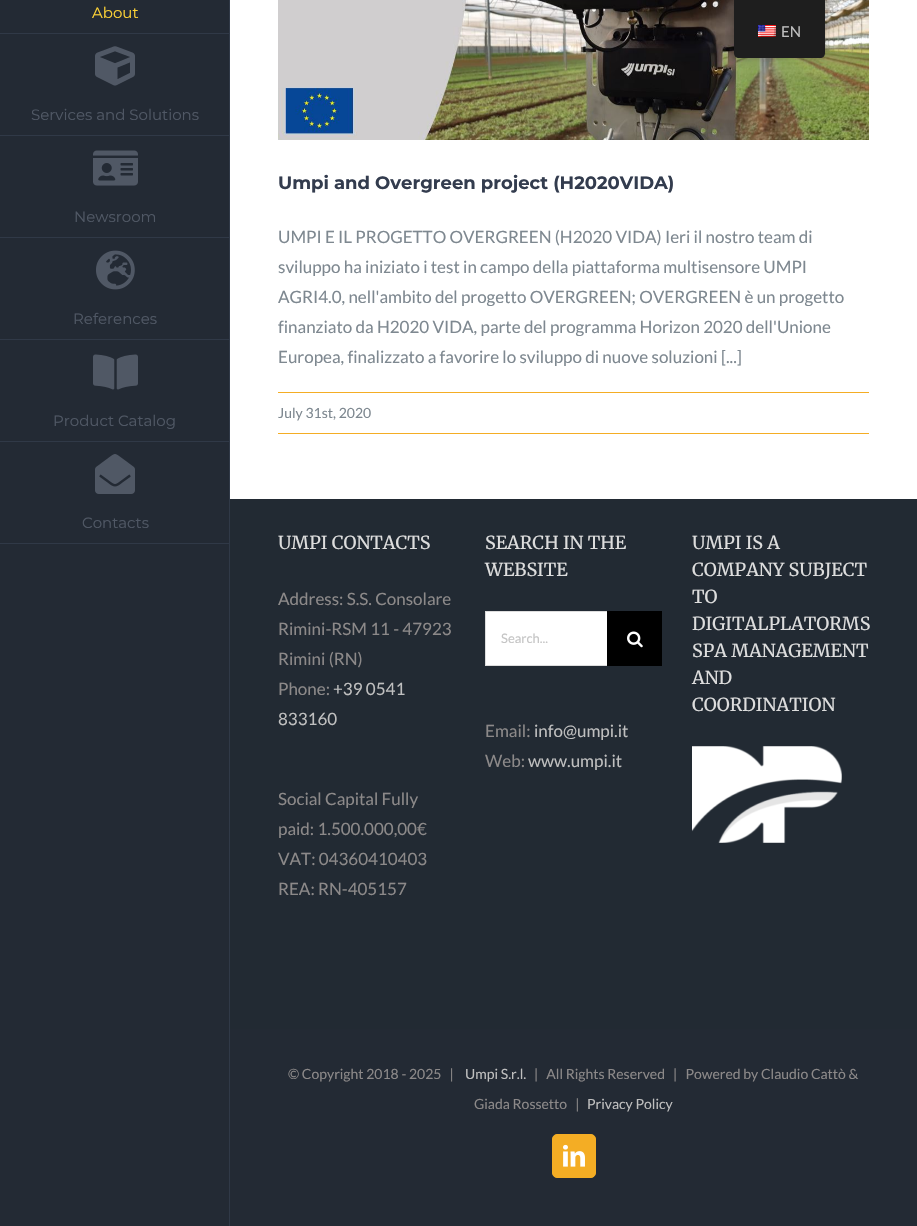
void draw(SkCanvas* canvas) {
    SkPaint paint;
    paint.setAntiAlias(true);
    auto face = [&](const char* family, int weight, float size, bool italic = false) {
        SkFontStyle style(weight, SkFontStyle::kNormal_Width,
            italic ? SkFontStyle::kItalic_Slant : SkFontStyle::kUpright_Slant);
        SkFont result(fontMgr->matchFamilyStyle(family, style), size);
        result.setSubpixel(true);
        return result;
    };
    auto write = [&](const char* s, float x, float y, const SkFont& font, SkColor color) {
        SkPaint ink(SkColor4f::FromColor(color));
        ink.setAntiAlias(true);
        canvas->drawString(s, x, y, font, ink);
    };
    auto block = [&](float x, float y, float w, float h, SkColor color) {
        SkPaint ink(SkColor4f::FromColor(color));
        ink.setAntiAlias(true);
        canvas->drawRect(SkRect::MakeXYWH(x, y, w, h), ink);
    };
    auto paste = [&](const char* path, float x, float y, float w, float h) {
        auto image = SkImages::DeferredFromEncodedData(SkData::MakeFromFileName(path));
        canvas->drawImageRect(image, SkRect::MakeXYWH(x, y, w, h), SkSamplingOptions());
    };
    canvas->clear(SK_ColorWHITE);
    block(0, 0, 229, 1226, SkColorSetRGB(35, 42, 52));
    block(229, 0, 1, 1226, SkColorSetRGB(48, 57, 71));
    block(0, 33, 230, 1, SkColorSetRGB(48, 57, 71));
    auto kFont1 = face("Montserrat", 400, 15);
    write("About", 92, 18, kFont1, SkColorSetRGB(254, 211, 54));
    block(0, 135, 230, 1, SkColorSetRGB(48, 57, 71));
    paste("pic1.png", 95, 46, 40, 40);
    write("Services and Solutions", 31, 120, kFont1, SkColorSetRGB(80, 88, 101));
    block(0, 237, 230, 1, SkColorSetRGB(48, 57, 71));
    paste("pic2.png", 93, 150, 45, 36);
    write("Newsroom", 74, 222, kFont1, SkColorSetRGB(80, 88, 101));
    block(0, 339, 230, 1, SkColorSetRGB(48, 57, 71));
    paste("pic3.png", 96, 250, 39, 40);
    write("References", 73, 324, kFont1, SkColorSetRGB(80, 88, 101));
    block(0, 441, 230, 1, SkColorSetRGB(48, 57, 71));
    paste("pic4.png", 93, 354, 45, 36);
    write("Product Catalog", 53, 426, kFont1, SkColorSetRGB(80, 88, 101));
    block(0, 543, 230, 1, SkColorSetRGB(48, 57, 71));
    paste("pic5.png", 95, 454, 40, 40);
    write("Contacts", 82, 528, kFont1, SkColorSetRGB(80, 88, 101));
    paste("pic6.png", 278, 0, 591, 140);
    auto kFont2 = face("Montserrat", 700, 18);
    write("Umpi and Overgreen project (H2020VIDA)", 278, 189, kFont2, SkColorSetRGB(51, 60, 78));
    auto kFont3 = face("Lato", 400, 17);
    write("UMPI E IL PROGETTO OVERGREEN (H2020 VIDA) Ieri il nostro team di", 278, 243, kFont3, SkColorSetRGB(126, 136, 144));
    write("sviluppo ha iniziato i test in campo della piattaforma multisensore UMPI", 278, 273, kFont3, SkColorSetRGB(126, 136, 144));
    write("AGRI4.0, nell'ambito del progetto OVERGREEN; OVERGREEN è un progetto", 278, 303, kFont3, SkColorSetRGB(126, 136, 144));
    write("finanziato da H2020 VIDA, parte del programma Horizon 2020 dell'Unione", 278, 333, kFont3, SkColorSetRGB(126, 136, 144));
    write("Europea, finalizzato a favorire lo sviluppo di nuove soluzioni [...]", 278, 363, kFont3, SkColorSetRGB(126, 136, 144));
    block(278, 392, 591, 1, SkColorSetRGB(244, 173, 36));
    block(278, 433, 591, 1, SkColorSetRGB(244, 173, 36));
    auto kFont4 = face("Lato", 400, 14);
    write("July 31st, 2020", 278, 418, kFont4, SkColorSetRGB(126, 136, 144));
    block(230, 499, 687, 530, SkColorSetRGB(34, 42, 51));
    auto kFont5 = face("Merriweather", 300, 18);
    write("UMPI CONTACTS", 278, 549, kFont5, SkColorSetRGB(221, 221, 221));
    write("Address: S.S. Consolare", 278, 605, kFont3, SkColorSetRGB(140, 137, 137));
    write("Rimini-RSM 11 - 47923", 278, 635, kFont3, SkColorSetRGB(140, 137, 137));
    write("Rimini (RN)", 278, 665, kFont3, SkColorSetRGB(140, 137, 137));
    write("Phone:", 278, 695, kFont3, SkColorSetRGB(140, 137, 137));
    write("+39 0541", 333, 695, kFont3, SkColorSetRGB(191, 191, 191));
    write("833160", 278, 725, kFont3, SkColorSetRGB(191, 191, 191));
    write("Social Capital Fully", 278, 805, kFont3, SkColorSetRGB(140, 137, 137));
    write("paid: 1.500.000,00€", 278, 835, kFont3, SkColorSetRGB(140, 137, 137));
    write("VAT: 04360410403", 278, 865, kFont3, SkColorSetRGB(140, 137, 137));
    write("REA: RN-405157", 278, 895, kFont3, SkColorSetRGB(140, 137, 137));
    write("SEARCH IN THE", 485, 549, kFont5, SkColorSetRGB(221, 221, 221));
    write("WEBSITE", 485, 576, kFont5, SkColorSetRGB(221, 221, 221));
    block(486, 612, 121, 53, SK_ColorWHITE);
    block(485, 611, 122, 1, SkColorSetRGB(221, 221, 221));
    block(485, 665, 122, 1, SkColorSetRGB(221, 221, 221));
    block(485, 611, 1, 55, SkColorSetRGB(221, 221, 221));
    auto kFont6 = face("Lato", 400, 13);
    write("Search...", 501, 643, kFont6, SkColorSetRGB(197, 197, 197));
    block(607, 611, 55, 55, SK_ColorBLACK);
    paste("pic7.png", 627, 631, 16, 17);
    write("Email:", 485, 737, kFont3, SkColorSetRGB(140, 137, 137));
    write("info@umpi.it", 534, 737, kFont3, SkColorSetRGB(191, 191, 191));
    write("Web:", 485, 767, kFont3, SkColorSetRGB(140, 137, 137));
    write("www.umpi.it", 528, 767, kFont3, SkColorSetRGB(191, 191, 191));
    write("UMPI IS A", 692, 549, kFont5, SkColorSetRGB(221, 221, 221));
    write("COMPANY SUBJECT", 692, 576, kFont5, SkColorSetRGB(221, 221, 221));
    write("TO", 692, 603, kFont5, SkColorSetRGB(221, 221, 221));
    write("DIGITALPLATORMS", 692, 630, kFont5, SkColorSetRGB(221, 221, 221));
    write("SPA MANAGEMENT", 692, 657, kFont5, SkColorSetRGB(221, 221, 221));
    write("AND", 692, 684, kFont5, SkColorSetRGB(221, 221, 221));
    write("COORDINATION", 692, 711, kFont5, SkColorSetRGB(221, 221, 221));
    paste("pic8.png", 692, 746, 150, 97);
    block(230, 1029, 687, 197, SkColorSetRGB(35, 42, 52));
    write("© Copyright 2018 - 2025   |", 288, 1079, kFont4, SkColorSetRGB(140, 137, 137));
    write("Umpi S.r.l.", 465, 1079, kFont4, SkColorSetRGB(191, 191, 191));
    write("|   All Rights Reserved   |   Powered by Claudio Cattò &", 534, 1079, kFont4, SkColorSetRGB(140, 137, 137));
    write("Giada Rossetto   |", 474, 1109, kFont4, SkColorSetRGB(140, 137, 137));
    write("Privacy Policy", 587, 1109, kFont4, SkColorSetRGB(191, 191, 191));
    paint.setColor(SkColorSetRGB(244, 173, 36));
    canvas->drawRoundRect(SkRect::MakeXYWH(552.5f, 1134.5f, 43, 43), 4.5f, 4.5f, paint);
    paint.setStyle(SkPaint::kStroke_Style);
    paint.setStrokeWidth(1);
    canvas->drawRoundRect(SkRect::MakeXYWH(552.5f, 1134.5f, 43, 43), 4.5f, 4.5f, paint);
    paste("pic9.png", 563, 1144, 22, 23);
    paint.setStyle(SkPaint::kFill_Style);
    paint.setColor(SkColorSetARGB(64, 0, 0, 0));
    paint.setMaskFilter(SkMaskFilter::MakeBlur(kNormal_SkBlurStyle, 4));
    canvas->drawRoundRect(SkRect::MakeXYWH(734, 0, 91, 58), 5, 5, paint);
    paint.setMaskFilter(nullptr);
    paint.setColor(SkColorSetRGB(30, 30, 30));
    canvas->drawPath(SkPathBuilder().moveTo(734, 0).lineTo(825, 0).lineTo(825, 53).cubicTo(825, 56, 823, 58, 820, 58).lineTo(739, 58).cubicTo(736, 58, 734, 56, 734, 53).close().detach(), paint);
    paste("pic10.png", 758, 25, 18, 12);
    auto kFont7 = face("Lato", 400, 15);
    write("EN", 781, 37, kFont7, SkColorSetRGB(191, 191, 191));
}
